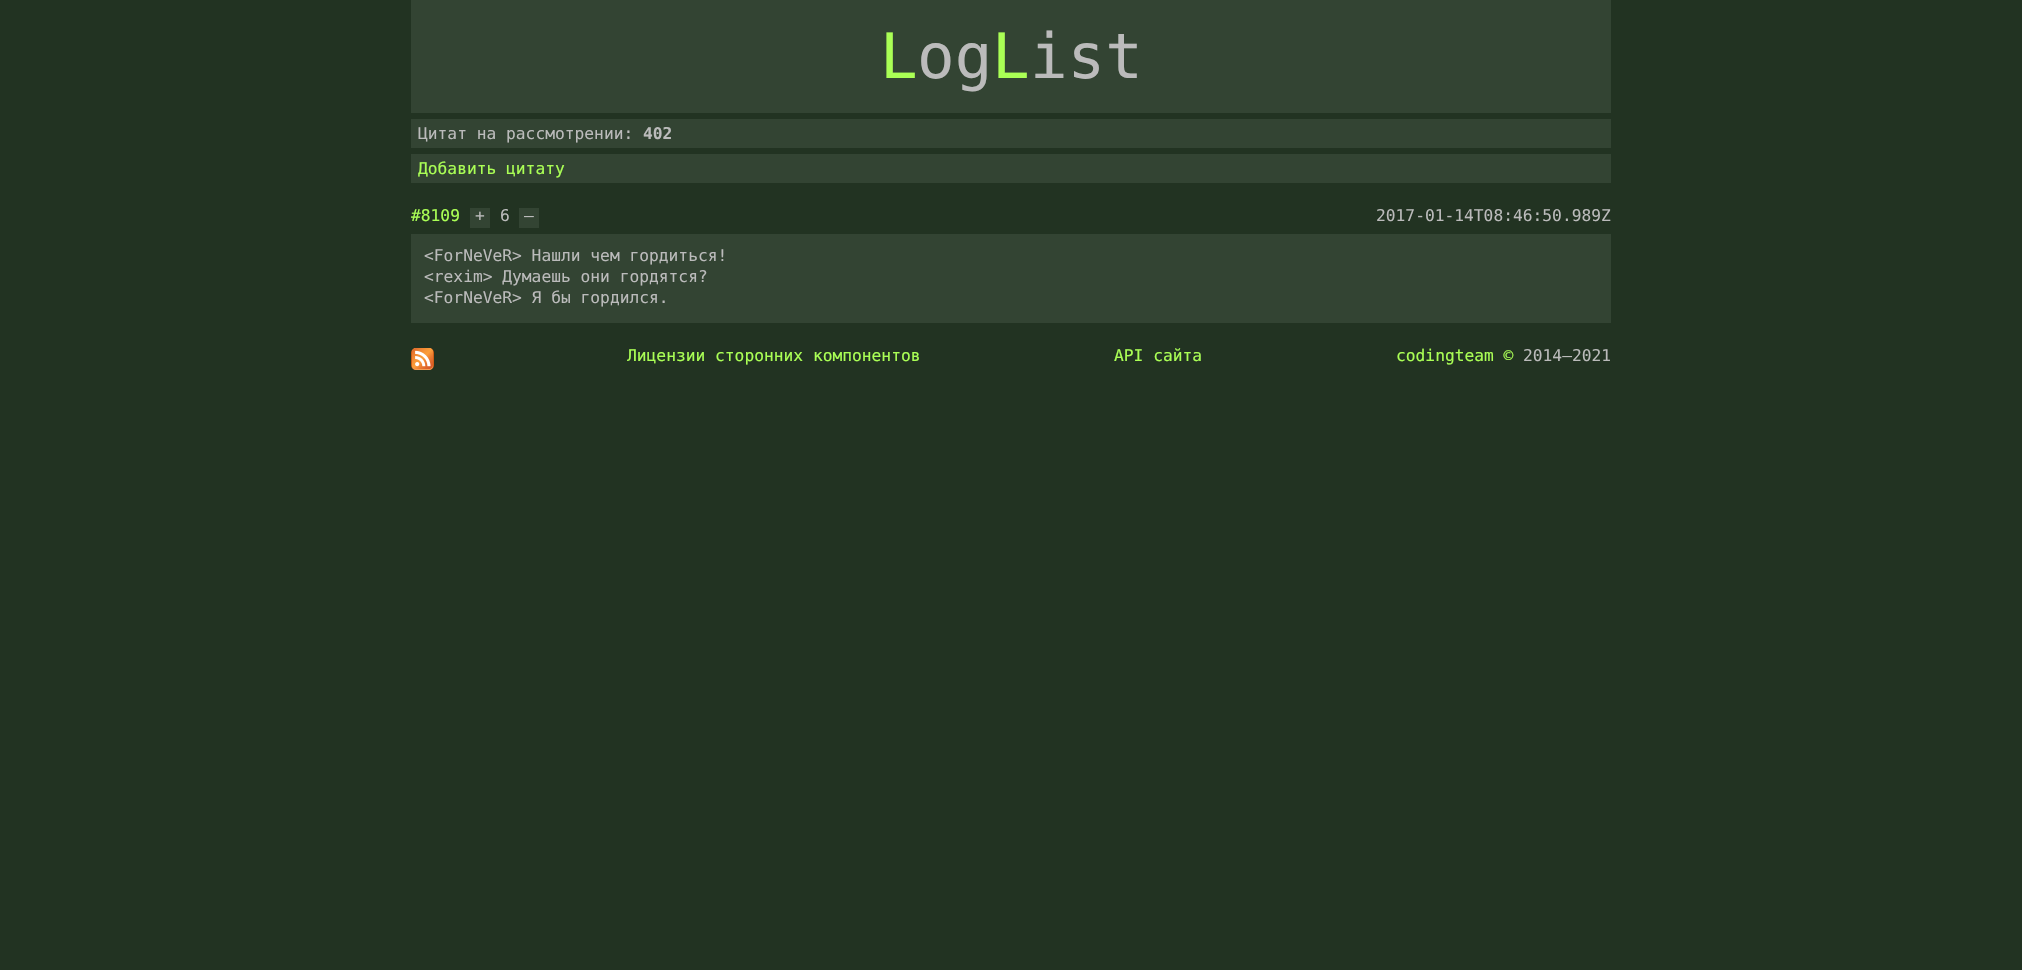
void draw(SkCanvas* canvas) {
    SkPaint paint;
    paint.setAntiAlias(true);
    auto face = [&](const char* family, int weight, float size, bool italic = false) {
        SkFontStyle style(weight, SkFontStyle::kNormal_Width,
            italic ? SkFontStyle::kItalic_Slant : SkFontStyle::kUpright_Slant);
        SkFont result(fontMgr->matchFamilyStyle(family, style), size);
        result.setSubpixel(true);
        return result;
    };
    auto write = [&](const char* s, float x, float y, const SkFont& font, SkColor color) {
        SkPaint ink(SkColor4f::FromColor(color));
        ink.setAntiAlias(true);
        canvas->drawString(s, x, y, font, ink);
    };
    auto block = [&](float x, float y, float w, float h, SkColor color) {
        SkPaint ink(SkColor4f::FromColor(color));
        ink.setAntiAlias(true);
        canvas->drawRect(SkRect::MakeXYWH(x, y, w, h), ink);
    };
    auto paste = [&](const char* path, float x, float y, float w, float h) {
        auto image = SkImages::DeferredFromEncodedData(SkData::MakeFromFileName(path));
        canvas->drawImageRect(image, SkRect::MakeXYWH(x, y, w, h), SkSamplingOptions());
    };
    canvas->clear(SkColorSetRGB(34, 51, 34));
    block(411, 0, 1200, 113, SkColorSetRGB(51, 68, 51));
    auto kFont1 = face("DejaVu Sans Mono", 400, 62.5f);
    write("L", 880, 78, kFont1, SkColorSetRGB(170, 255, 85));
    write("og ist", 917, 78, kFont1, SkColorSetRGB(187, 187, 187));
    write("L", 992, 78, kFont1, SkColorSetRGB(170, 255, 85));
    block(411, 119, 1200, 29, SkColorSetRGB(51, 68, 51));
    auto kFont2 = face("DejaVu Sans Mono", 400, 16.25f);
    write("Цитат на рассмотрении:", 418, 139, kFont2, SkColorSetRGB(187, 187, 187));
    auto kFont3 = face("DejaVu Sans Mono", 700, 16.25f);
    write("402", 643, 139, kFont3, SkColorSetRGB(187, 187, 187));
    block(411, 154, 1200, 29, SkColorSetRGB(51, 68, 51));
    write("Добавить цитату", 418, 174, kFont2, SkColorSetRGB(170, 255, 85));
    write("#8109", 411, 221, kFont2, SkColorSetRGB(170, 255, 85));
    block(470, 208, 20, 20, SkColorSetRGB(51, 68, 51));
    write("+", 475, 221, kFont2, SkColorSetRGB(187, 187, 187));
    write("6", 500, 221, kFont2, SkColorSetRGB(187, 187, 187));
    block(519, 208, 20, 20, SkColorSetRGB(51, 68, 51));
    write("–", 524, 221, kFont2, SkColorSetRGB(187, 187, 187));
    write("2017-01-14T08:46:50.989Z", 1376, 221, kFont2, SkColorSetRGB(187, 187, 187));
    block(411, 234, 1200, 89, SkColorSetRGB(51, 68, 51));
    write("<ForNeVeR> Нашли чем гордиться!", 424, 261, kFont2, SkColorSetRGB(187, 187, 187));
    write("<rexim> Думаешь они гордятся?", 424, 282, kFont2, SkColorSetRGB(187, 187, 187));
    write("<ForNeVeR> Я бы гордился.", 424, 303, kFont2, SkColorSetRGB(187, 187, 187));
    paste("pic1.png", 411, 348, 23, 22);
    write("Лицензии сторонних компонентов", 627, 361, kFont2, SkColorSetRGB(170, 255, 85));
    write("API сайта", 1114, 361, kFont2, SkColorSetRGB(170, 255, 85));
    write("codingteam ©", 1396, 361, kFont2, SkColorSetRGB(170, 255, 85));
    write("2014–2021", 1523, 361, kFont2, SkColorSetRGB(187, 187, 187));
}
